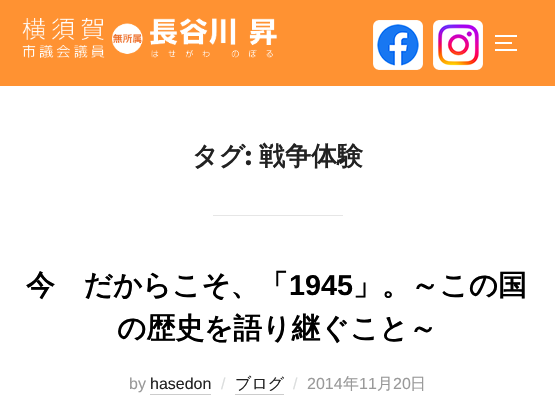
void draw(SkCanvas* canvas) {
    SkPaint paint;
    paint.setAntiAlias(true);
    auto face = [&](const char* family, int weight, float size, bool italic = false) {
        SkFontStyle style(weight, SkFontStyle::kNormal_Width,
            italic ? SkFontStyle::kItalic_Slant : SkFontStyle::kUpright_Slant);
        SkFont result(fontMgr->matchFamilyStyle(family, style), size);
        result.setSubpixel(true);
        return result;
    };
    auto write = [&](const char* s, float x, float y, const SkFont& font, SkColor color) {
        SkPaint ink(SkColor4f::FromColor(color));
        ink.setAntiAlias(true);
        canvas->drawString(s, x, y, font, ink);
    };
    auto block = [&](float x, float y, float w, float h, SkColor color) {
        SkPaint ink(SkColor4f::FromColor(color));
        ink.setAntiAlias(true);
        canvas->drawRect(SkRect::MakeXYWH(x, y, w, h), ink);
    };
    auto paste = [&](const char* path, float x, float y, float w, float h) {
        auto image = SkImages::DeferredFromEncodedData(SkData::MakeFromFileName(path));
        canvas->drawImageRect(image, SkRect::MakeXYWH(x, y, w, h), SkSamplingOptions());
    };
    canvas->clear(SK_ColorWHITE);
    block(0, 0, 555, 86, SkColorSetRGB(255, 146, 50));
    paste("pic1.png", 22, 18, 255, 40);
    block(495, 35, 22, 2, SK_ColorWHITE);
    block(495, 42, 17, 2, SK_ColorWHITE);
    block(495, 49, 22, 2, SK_ColorWHITE);
    paste("pic2.png", 373, 20, 50, 50);
    paste("pic3.png", 433, 20, 50, 50);
    auto kFont1 = face("WenQuanYi Zen Hei", 700, 26);
    write("タグ", 192, 165, kFont1, SkColorSetRGB(34, 34, 34));
    auto kFont2 = face("Montserrat", 700, 26);
    write(":", 245, 165, kFont2, SkColorSetRGB(34, 34, 34));
    write("戦争体験", 259, 165, kFont1, SkColorSetRGB(34, 34, 34));
    block(213, 215, 130, 1, SkColorSetRGB(230, 230, 230));
    auto kFont3 = face("WenQuanYi Zen Hei", 700, 28.75f);
    write("今　だからこそ、「", 26, 295, kFont3, SK_ColorBLACK);
    auto kFont4 = face("Liberation Sans", 700, 28.75f);
    write("1945", 289, 295, kFont4, SK_ColorBLACK);
    write("」。～この国", 353, 295, kFont3, SK_ColorBLACK);
    write("の歴史を語り継ぐこと～", 117, 338, kFont3, SK_ColorBLACK);
    auto kFont5 = face("Liberation Sans", 400, 16);
    write("by", 129, 389, kFont5, SkColorSetRGB(153, 153, 153));
    write("hasedon", 150, 389, kFont5, SkColorSetRGB(34, 34, 34));
    block(150, 394, 61, 1, SkColorSetRGB(204, 204, 204));
    write("/", 221, 389, kFont5, SkColorSetRGB(219, 221, 221));
    auto kFont6 = face("WenQuanYi Zen Hei", 500, 16);
    write("ブログ", 235, 389, kFont6, SkColorSetRGB(34, 34, 34));
    block(235, 394, 49, 1, SkColorSetRGB(204, 204, 204));
    write("/", 293, 389, kFont5, SkColorSetRGB(219, 221, 221));
    write("2014", 307, 389, kFont5, SkColorSetRGB(153, 153, 153));
    write("年", 343, 389, kFont6, SkColorSetRGB(153, 153, 153));
    write("11", 359, 389, kFont5, SkColorSetRGB(153, 153, 153));
    write("月", 377, 389, kFont6, SkColorSetRGB(153, 153, 153));
    write("20", 393, 389, kFont5, SkColorSetRGB(153, 153, 153));
    write("日", 410, 389, kFont6, SkColorSetRGB(153, 153, 153));
}
